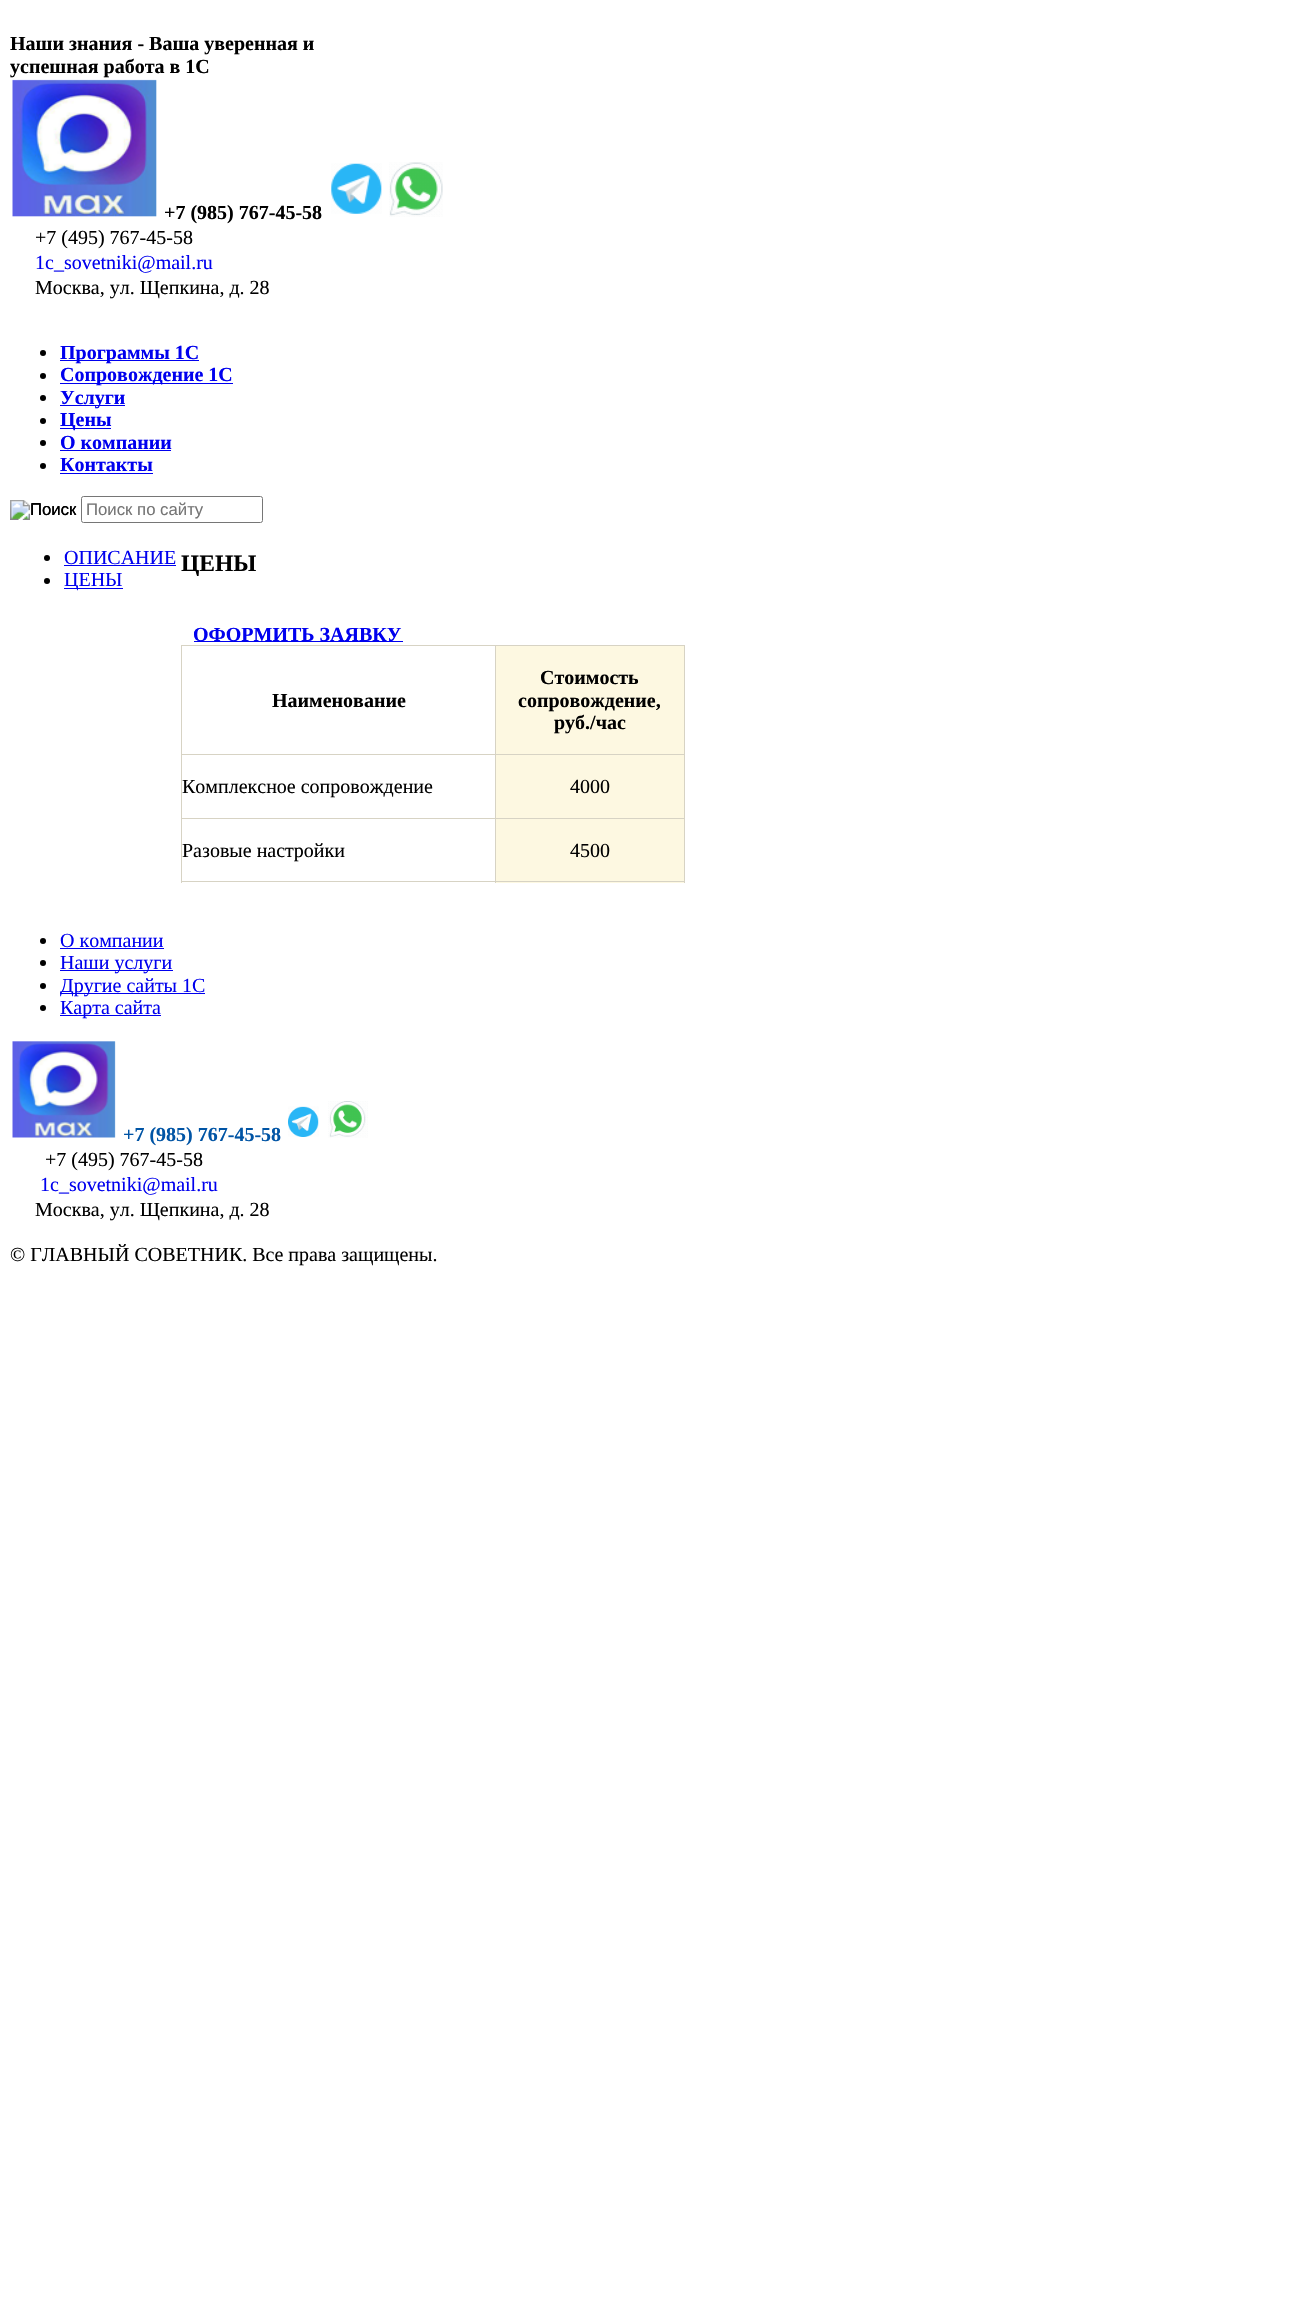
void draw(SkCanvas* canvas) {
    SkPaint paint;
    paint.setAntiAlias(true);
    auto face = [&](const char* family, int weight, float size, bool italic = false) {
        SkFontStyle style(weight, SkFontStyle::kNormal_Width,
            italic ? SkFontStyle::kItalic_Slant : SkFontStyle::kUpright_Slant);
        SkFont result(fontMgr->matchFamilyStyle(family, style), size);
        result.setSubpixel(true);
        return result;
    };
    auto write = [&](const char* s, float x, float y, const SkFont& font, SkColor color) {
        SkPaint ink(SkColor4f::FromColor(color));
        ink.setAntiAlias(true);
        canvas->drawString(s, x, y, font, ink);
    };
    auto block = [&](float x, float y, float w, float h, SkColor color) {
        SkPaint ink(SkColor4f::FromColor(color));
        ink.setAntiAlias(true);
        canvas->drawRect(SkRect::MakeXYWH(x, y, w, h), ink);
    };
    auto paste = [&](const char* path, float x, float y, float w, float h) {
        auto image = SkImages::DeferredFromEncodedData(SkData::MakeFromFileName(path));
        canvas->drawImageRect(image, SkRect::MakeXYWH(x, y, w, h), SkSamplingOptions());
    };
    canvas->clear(SK_ColorWHITE);
    auto kFont1 = face("Liberation Serif", 700, 20);
    write("Наши знания - Ваша уверенная и", 10, 50, kFont1, SK_ColorBLACK);
    write("успешная работа в 1С", 10, 73, kFont1, SK_ColorBLACK);
    paste("pic1.png", 12, 79, 145, 138);
    write("+7 (985) 767-45-58", 164, 219, kFont1, SK_ColorBLACK);
    paste("pic2.png", 331, 163, 51, 51);
    paste("pic3.png", 389, 162, 54, 55);
    auto kFont2 = face("Liberation Serif", 400, 20);
    write("+7 (495) 767-45-58", 35, 244, kFont2, SK_ColorBLACK);
    write("1c_sovetniki@mail.ru", 35, 269, kFont2, SkColorSetRGB(0, 0, 238));
    write("Москва, ул. Щепкина, д. 28", 35, 294, kFont2, SK_ColorBLACK);
    paint.setColor(SK_ColorBLACK);
    canvas->drawCircle(43, 353, 3, paint);
    block(60, 360, 139, 1, SkColorSetRGB(0, 0, 238));
    write("Программы 1С", 60, 359, kFont1, SkColorSetRGB(0, 0, 238));
    canvas->drawCircle(43, 376, 3, paint);
    block(60, 383, 173, 1, SkColorSetRGB(0, 0, 238));
    write("Сопровождение 1С", 60, 381, kFont1, SkColorSetRGB(0, 0, 238));
    canvas->drawCircle(43, 398, 3, paint);
    block(60, 405, 65, 1, SkColorSetRGB(0, 0, 238));
    write("Услуги", 60, 404, kFont1, SkColorSetRGB(0, 0, 238));
    canvas->drawCircle(43, 421, 3, paint);
    block(60, 428, 51, 1, SkColorSetRGB(0, 0, 238));
    write("Цены", 60, 426, kFont1, SkColorSetRGB(0, 0, 238));
    canvas->drawCircle(43, 443, 3, paint);
    write("О компании", 60, 449, kFont1, SkColorSetRGB(0, 0, 238));
    block(60, 450, 111, 1, SkColorSetRGB(0, 0, 238));
    canvas->drawCircle(43, 466, 3, paint);
    write("Контакты", 60, 471, kFont1, SkColorSetRGB(0, 0, 238));
    block(60, 473, 93, 1, SkColorSetRGB(0, 0, 238));
    paste("pic4.png", 10, 500, 67, 20);
    auto kFont3 = face("Liberation Sans", 400, 16.75f);
    write("Поиск", 30, 515, kFont3, SK_ColorBLACK);
    paint.setStyle(SkPaint::kStroke_Style);
    paint.setStrokeWidth(1);
    paint.setColor(SkColorSetRGB(118, 118, 118));
    canvas->drawRoundRect(SkRect::MakeXYWH(81.5f, 496.5f, 181, 26), 2, 2, paint);
    write("Поиск по сайту", 86, 515, kFont3, SkColorSetRGB(117, 117, 117));
    paint.setStyle(SkPaint::kFill_Style);
    paint.setColor(SK_ColorBLACK);
    canvas->drawCircle(47, 558, 3, paint);
    write("ОПИСАНИЕ", 64, 564, kFont2, SkColorSetRGB(0, 0, 238));
    block(64, 565, 112, 1, SkColorSetRGB(0, 0, 238));
    canvas->drawCircle(47, 581, 3, paint);
    block(64, 588, 59, 1, SkColorSetRGB(0, 0, 238));
    write("ЦЕНЫ", 64, 586, kFont2, SkColorSetRGB(0, 0, 238));
    auto kFont4 = face("Liberation Serif", 700, 23.5f);
    write("ЦЕНЫ", 181, 571, kFont4, SK_ColorBLACK);
    block(194, 641, 209, 1, SkColorSetRGB(0, 0, 238));
    write("ОФОРМИТЬ ЗАЯВКУ", 193, 641, kFont1, SkColorSetRGB(0, 0, 238));
    block(181, 645, 504, 1, SkColorSetRGB(215, 211, 196));
    block(181, 754, 504, 1, SkColorSetRGB(215, 211, 196));
    block(181, 818, 504, 1, SkColorSetRGB(215, 211, 196));
    block(684, 818, 1, 65, SkColorSetRGB(215, 211, 196));
    block(684, 754, 1, 65, SkColorSetRGB(215, 211, 196));
    block(684, 645, 1, 110, SkColorSetRGB(215, 211, 196));
    block(496, 819, 188, 64, SkColorSetRGB(253, 248, 225));
    block(181, 881, 504, 1, SkColorSetRGB(215, 211, 196));
    block(181, 818, 1, 65, SkColorSetRGB(215, 211, 196));
    block(181, 754, 1, 65, SkColorSetRGB(215, 211, 196));
    block(181, 645, 1, 110, SkColorSetRGB(215, 211, 196));
    write("Наименование", 272, 707, kFont1, SK_ColorBLACK);
    block(496, 646, 188, 108, SkColorSetRGB(253, 248, 225));
    write("Стоимость", 540, 684, kFont1, SK_ColorBLACK);
    write("сопровождение,", 518, 707, kFont1, SK_ColorBLACK);
    write("руб./час", 554, 729, kFont1, SK_ColorBLACK);
    write("Комплексное сопровождение", 182, 793, kFont2, SK_ColorBLACK);
    block(496, 755, 188, 63, SkColorSetRGB(253, 248, 225));
    write("4000", 570, 793, kFont2, SK_ColorBLACK);
    write("Разовые настройки", 182, 857, kFont2, SK_ColorBLACK);
    block(495, 645, 1, 238, SkColorSetRGB(215, 211, 196));
    write("4500", 570, 857, kFont2, SK_ColorBLACK);
    canvas->drawCircle(43, 941, 3, paint);
    write("О компании", 60, 947, kFont2, SkColorSetRGB(0, 0, 238));
    block(60, 948, 104, 1, SkColorSetRGB(0, 0, 238));
    canvas->drawCircle(43, 963, 3, paint);
    block(60, 970, 113, 1, SkColorSetRGB(0, 0, 238));
    write("Наши услуги", 60, 969, kFont2, SkColorSetRGB(0, 0, 238));
    canvas->drawCircle(43, 986, 3, paint);
    block(60, 993, 145, 1, SkColorSetRGB(0, 0, 238));
    write("Другие сайты 1С", 60, 992, kFont2, SkColorSetRGB(0, 0, 238));
    canvas->drawCircle(43, 1008, 3, paint);
    block(60, 1015, 101, 1, SkColorSetRGB(0, 0, 238));
    write("Карта сайта", 60, 1014, kFont2, SkColorSetRGB(0, 0, 238));
    paste("pic5.png", 12, 1041, 104, 97);
    write("+7 (985) 767-45-58", 123, 1141, kFont1, SkColorSetRGB(0, 84, 165));
    paste("pic6.png", 288, 1106, 31, 31);
    paste("pic7.png", 328, 1101, 40, 37);
    write("+7 (495) 767-45-58", 45, 1166, kFont2, SK_ColorBLACK);
    write("1c_sovetniki@mail.ru", 40, 1191, kFont2, SkColorSetRGB(0, 0, 238));
    write("Москва, ул. Щепкина, д. 28", 35, 1216, kFont2, SK_ColorBLACK);
    write("© ГЛАВНЫЙ СОВЕТНИК. Все права защищены.", 10, 1261, kFont2, SK_ColorBLACK);
}
